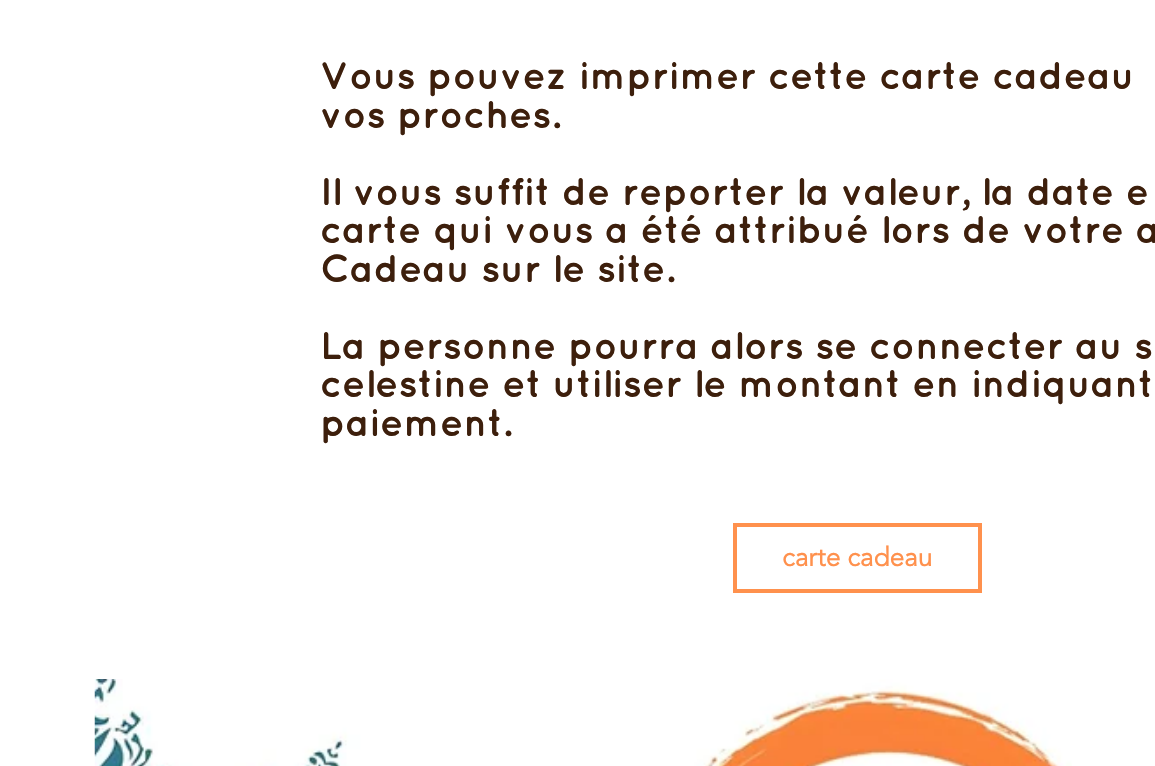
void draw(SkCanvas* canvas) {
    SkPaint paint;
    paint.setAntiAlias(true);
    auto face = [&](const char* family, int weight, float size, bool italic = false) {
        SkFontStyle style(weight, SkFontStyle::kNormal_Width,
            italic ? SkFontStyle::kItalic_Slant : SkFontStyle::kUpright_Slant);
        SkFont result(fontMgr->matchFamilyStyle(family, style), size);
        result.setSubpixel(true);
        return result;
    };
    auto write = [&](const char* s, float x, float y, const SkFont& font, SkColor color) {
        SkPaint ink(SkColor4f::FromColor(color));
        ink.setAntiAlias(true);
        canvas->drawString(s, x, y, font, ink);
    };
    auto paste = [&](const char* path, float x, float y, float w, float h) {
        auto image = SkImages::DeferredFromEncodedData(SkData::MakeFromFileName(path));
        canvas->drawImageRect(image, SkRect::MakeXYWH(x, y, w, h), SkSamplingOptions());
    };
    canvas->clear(SK_ColorWHITE);
    auto kFont1 = face("Quicksand", 700, 38.5f);
    write("Vous pouvez imprimer cette carte cadeau", 320, 89, kFont1, SkColorSetRGB(61, 31, 12));
    write("vos proches.", 320, 128, kFont1, SkColorSetRGB(61, 31, 12));
    write("Il vous suffit de reporter la valeur, la date e", 320, 205, kFont1, SkColorSetRGB(61, 31, 12));
    write("carte qui vous a été attribué lors de votre a", 320, 243, kFont1, SkColorSetRGB(61, 31, 12));
    write("Cadeau sur le site.", 320, 282, kFont1, SkColorSetRGB(61, 31, 12));
    write("La personne pourra alors se connecter au s", 320, 359, kFont1, SkColorSetRGB(61, 31, 12));
    write("celestine et utiliser le montant en indiquant", 320, 397, kFont1, SkColorSetRGB(61, 31, 12));
    write("paiement.", 320, 436, kFont1, SkColorSetRGB(61, 31, 12));
    paint.setStyle(SkPaint::kStroke_Style);
    paint.setStrokeWidth(4);
    paint.setColor(SkColorSetRGB(255, 145, 77));
    canvas->drawRect(SkRect::MakeXYWH(735, 525, 245, 66), paint);
    auto kFont2 = face("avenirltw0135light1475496", 700, 26.25f);
    write("carte cadeau", 782, 566, kFont2, SkColorSetRGB(255, 145, 77));
    paste("pic1.png", 94, 679, 978, 87);
}
